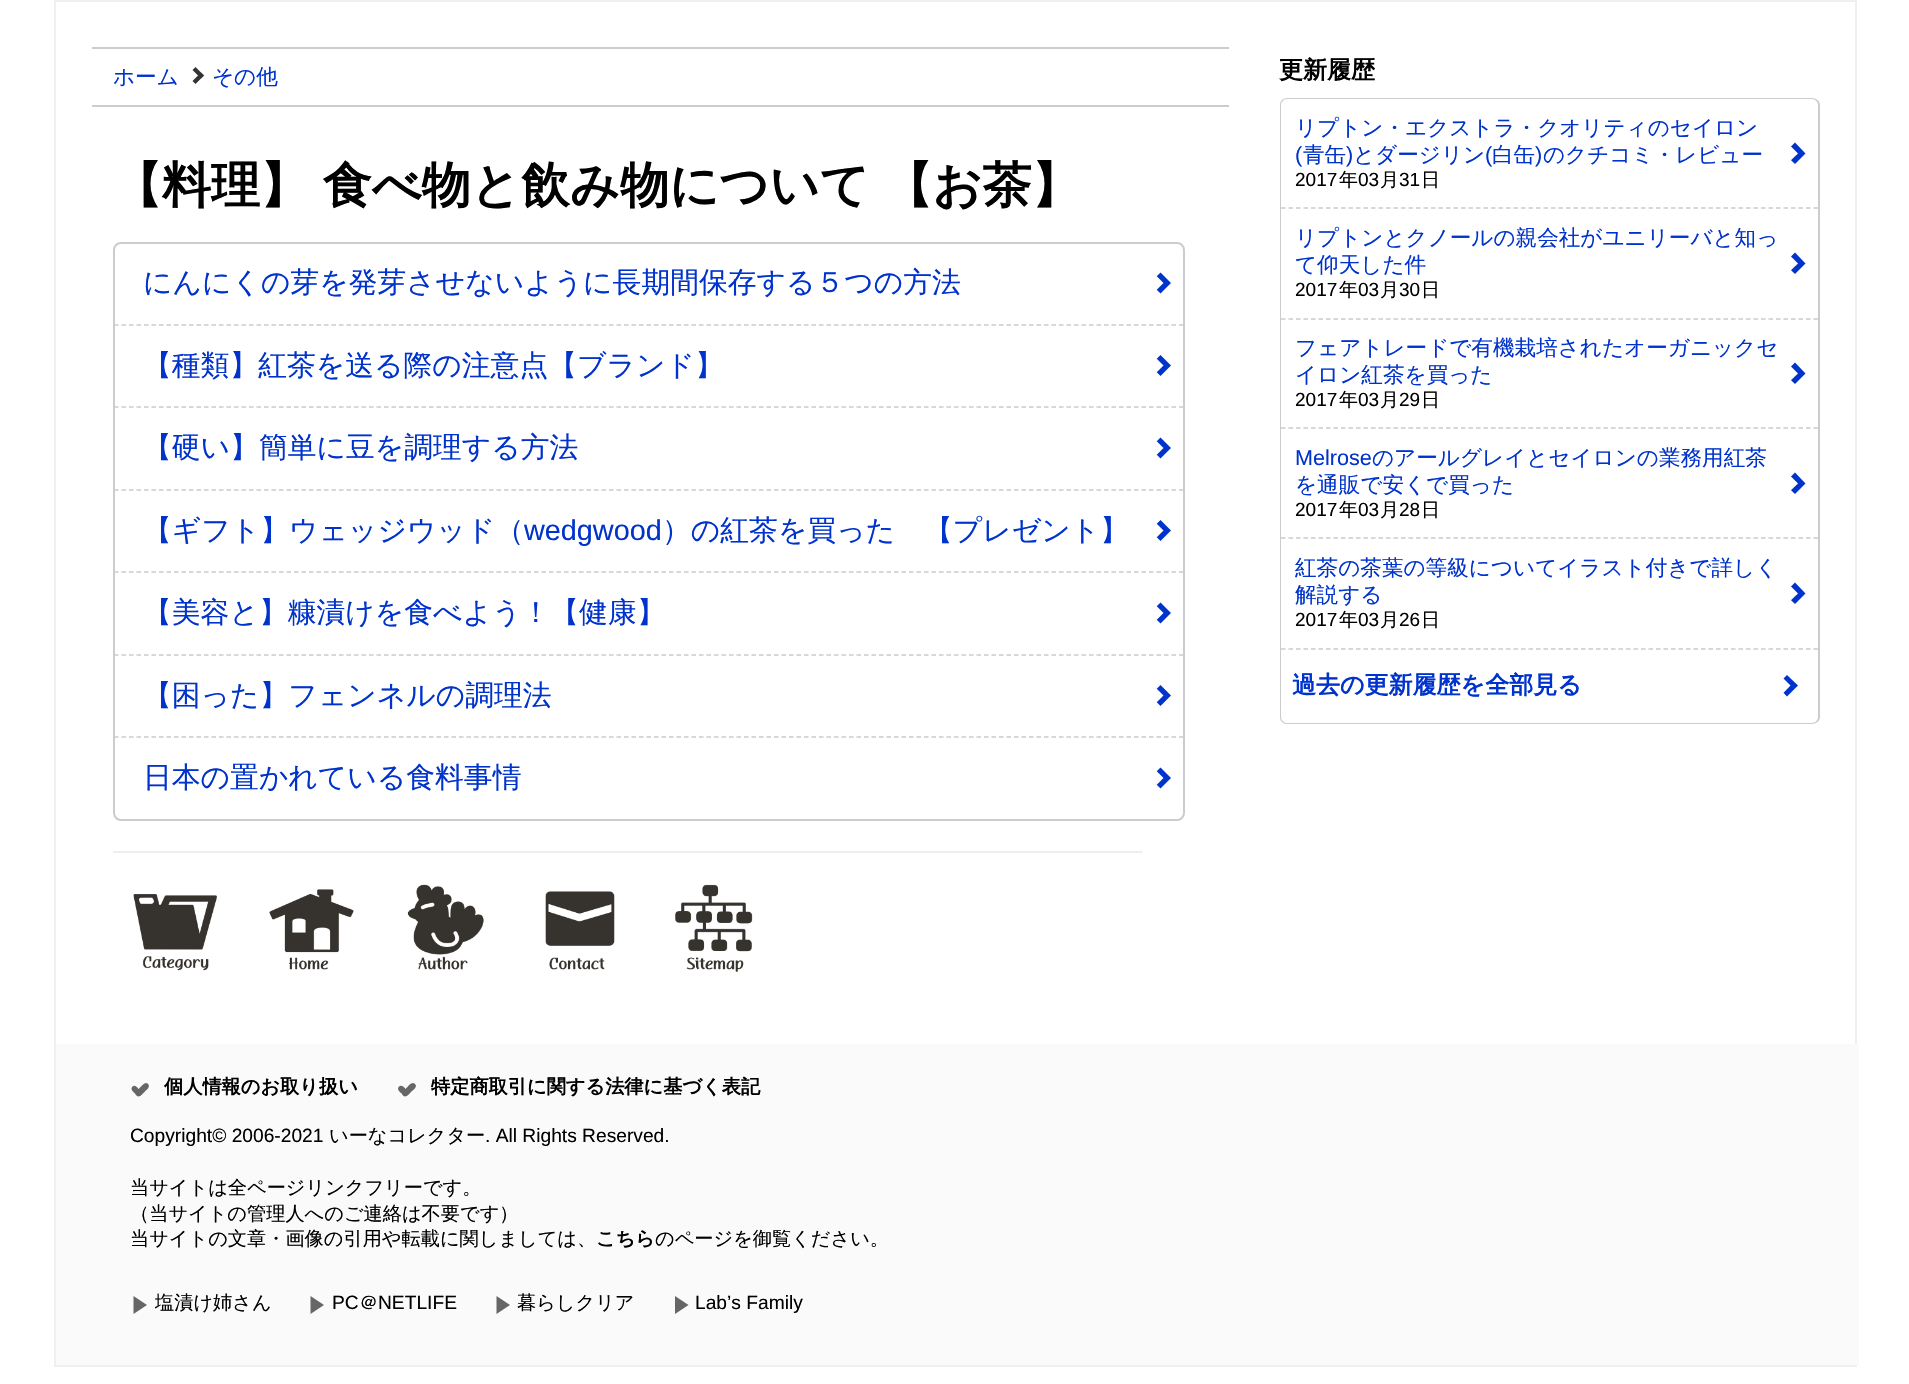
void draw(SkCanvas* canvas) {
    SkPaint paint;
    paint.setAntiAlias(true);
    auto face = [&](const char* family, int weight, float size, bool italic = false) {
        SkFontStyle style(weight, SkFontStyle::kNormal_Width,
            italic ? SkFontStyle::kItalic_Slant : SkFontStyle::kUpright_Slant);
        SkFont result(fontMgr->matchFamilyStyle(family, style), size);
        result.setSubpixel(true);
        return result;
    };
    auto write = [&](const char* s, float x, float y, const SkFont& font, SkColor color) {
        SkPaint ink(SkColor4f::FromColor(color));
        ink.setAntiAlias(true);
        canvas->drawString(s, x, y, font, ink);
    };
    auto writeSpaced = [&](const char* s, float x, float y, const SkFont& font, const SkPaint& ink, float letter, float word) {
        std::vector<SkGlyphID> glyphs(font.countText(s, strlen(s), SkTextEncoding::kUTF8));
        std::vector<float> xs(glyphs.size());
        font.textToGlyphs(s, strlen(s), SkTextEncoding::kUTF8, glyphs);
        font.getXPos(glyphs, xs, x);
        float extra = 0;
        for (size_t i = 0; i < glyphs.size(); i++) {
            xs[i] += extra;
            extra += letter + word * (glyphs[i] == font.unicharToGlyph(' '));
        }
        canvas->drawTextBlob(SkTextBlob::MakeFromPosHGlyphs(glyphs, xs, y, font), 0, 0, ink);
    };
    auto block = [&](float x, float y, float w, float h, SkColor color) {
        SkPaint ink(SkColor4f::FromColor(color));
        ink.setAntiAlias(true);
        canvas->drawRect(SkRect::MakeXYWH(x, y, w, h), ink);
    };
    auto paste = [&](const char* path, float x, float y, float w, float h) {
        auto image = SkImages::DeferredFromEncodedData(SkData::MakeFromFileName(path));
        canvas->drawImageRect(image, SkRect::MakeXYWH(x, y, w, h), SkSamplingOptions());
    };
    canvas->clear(SK_ColorWHITE);
    paint.setStyle(SkPaint::kStroke_Style);
    paint.setStrokeWidth(2);
    paint.setColor(SkColorSetRGB(239, 239, 239));
    canvas->drawRect(SkRect::MakeXYWH(55, 1, 1801, 1365), paint);
    block(92, 47, 1137, 2, SkColorSetRGB(204, 204, 204));
    block(92, 105, 1137, 2, SkColorSetRGB(204, 204, 204));
    auto kFont1 = face("WenQuanYi Zen Hei", 500, 21.6f);
    write("ホーム", 113, 84, kFont1, SkColorSetRGB(0, 51, 204));
    paint.setStyle(SkPaint::kFill_Style);
    paint.setColor(SkColorSetRGB(51, 51, 51));
    canvas->drawPath(SkPathBuilder().moveTo(195.5f, 67).lineTo(204, 75.5f).lineTo(201, 78.5f).lineTo(192.5f, 70).close().detach(), paint);
    canvas->drawPath(SkPathBuilder().moveTo(201, 72.5f).lineTo(204, 75.5f).lineTo(195.5f, 84).lineTo(192.5f, 81).close().detach(), paint);
    write("その他", 212, 84, kFont1, SkColorSetRGB(0, 51, 204));
    auto kFont2 = face("WenQuanYi Zen Hei", 700, 49);
    paint.setColor(SK_ColorBLACK);
    writeSpaced("【料理】 食べ物と飲み物について 【お茶】", 113, 202, kFont2, paint, 0, -1);
    paint.setStyle(SkPaint::kStroke_Style);
    paint.setColor(SkColorSetRGB(204, 204, 204));
    canvas->drawRoundRect(SkRect::MakeXYWH(114, 243, 1070, 577), 7, 7, paint);
    paint.setStrokeWidth(1.5f);
    paint.setPathEffect(SkDashPathEffect::Make({{4.5f, 3}}, 0));
    canvas->drawPath(SkPathBuilder().moveTo(114, 325).lineTo(1183.5f, 325).detach(), paint);
    paint.setPathEffect(nullptr);
    auto kFont3 = face("WenQuanYi Zen Hei", 500, 28.8f);
    write("にんにくの芽を発芽させないように長期間保存する５つの方法", 143, 292, kFont3, SkColorSetRGB(0, 51, 204));
    paint.setStyle(SkPaint::kFill_Style);
    paint.setColor(SkColorSetRGB(0, 51, 204));
    canvas->drawPath(SkPathBuilder().moveTo(1160.5f, 272.5f).lineTo(1171, 283).lineTo(1160.5f, 293.5f).lineTo(1150, 283).close().detach(), paint);
    paint.setColor(SK_ColorWHITE);
    canvas->drawPath(SkPathBuilder().moveTo(1153, 272.5f).lineTo(1163.5f, 283).lineTo(1153, 293.5f).lineTo(1142.5f, 283).close().detach(), paint);
    paint.setStyle(SkPaint::kStroke_Style);
    paint.setColor(SkColorSetRGB(204, 204, 204));
    paint.setPathEffect(SkDashPathEffect::Make({{4.5f, 3}}, 0));
    canvas->drawPath(SkPathBuilder().moveTo(114, 407).lineTo(1183.5f, 407).detach(), paint);
    paint.setPathEffect(nullptr);
    write("【種類】紅茶を送る際の注意点【ブランド】", 143, 375, kFont3, SkColorSetRGB(0, 51, 204));
    paint.setStyle(SkPaint::kFill_Style);
    paint.setColor(SkColorSetRGB(0, 51, 204));
    canvas->drawPath(SkPathBuilder().moveTo(1160.5f, 355).lineTo(1171, 365.5f).lineTo(1160.5f, 376).lineTo(1150, 365.5f).close().detach(), paint);
    paint.setColor(SK_ColorWHITE);
    canvas->drawPath(SkPathBuilder().moveTo(1153, 355).lineTo(1163.5f, 365.5f).lineTo(1153, 376).lineTo(1142.5f, 365.5f).close().detach(), paint);
    paint.setStyle(SkPaint::kStroke_Style);
    paint.setColor(SkColorSetRGB(204, 204, 204));
    paint.setPathEffect(SkDashPathEffect::Make({{4.5f, 3}}, 0));
    canvas->drawPath(SkPathBuilder().moveTo(114, 490).lineTo(1183.5f, 490).detach(), paint);
    paint.setPathEffect(nullptr);
    write("【硬い】簡単に豆を調理する方法", 143, 457, kFont3, SkColorSetRGB(0, 51, 204));
    paint.setStyle(SkPaint::kFill_Style);
    paint.setColor(SkColorSetRGB(0, 51, 204));
    canvas->drawPath(SkPathBuilder().moveTo(1160.5f, 437.5f).lineTo(1171, 448).lineTo(1160.5f, 458.5f).lineTo(1150, 448).close().detach(), paint);
    paint.setColor(SK_ColorWHITE);
    canvas->drawPath(SkPathBuilder().moveTo(1153, 437.5f).lineTo(1163.5f, 448).lineTo(1153, 458.5f).lineTo(1142.5f, 448).close().detach(), paint);
    paint.setStyle(SkPaint::kStroke_Style);
    paint.setColor(SkColorSetRGB(204, 204, 204));
    paint.setPathEffect(SkDashPathEffect::Make({{4.5f, 3}}, 0));
    canvas->drawPath(SkPathBuilder().moveTo(114, 572).lineTo(1183.5f, 572).detach(), paint);
    paint.setPathEffect(nullptr);
    write("【ギフト】ウェッジウッド（", 143, 540, kFont3, SkColorSetRGB(0, 51, 204));
    auto kFont4 = face("Liberation Sans", 400, 28.8f);
    write("wedgwood", 524, 540, kFont4, SkColorSetRGB(0, 51, 204));
    write("）の紅茶を買った　【プレゼント】", 662, 540, kFont3, SkColorSetRGB(0, 51, 204));
    paint.setStyle(SkPaint::kFill_Style);
    paint.setColor(SkColorSetRGB(0, 51, 204));
    canvas->drawPath(SkPathBuilder().moveTo(1160.5f, 520).lineTo(1171, 530.5f).lineTo(1160.5f, 541).lineTo(1150, 530.5f).close().detach(), paint);
    paint.setColor(SK_ColorWHITE);
    canvas->drawPath(SkPathBuilder().moveTo(1153, 520).lineTo(1163.5f, 530.5f).lineTo(1153, 541).lineTo(1142.5f, 530.5f).close().detach(), paint);
    paint.setStyle(SkPaint::kStroke_Style);
    paint.setColor(SkColorSetRGB(204, 204, 204));
    paint.setPathEffect(SkDashPathEffect::Make({{4.5f, 3}}, 0));
    canvas->drawPath(SkPathBuilder().moveTo(114, 655).lineTo(1183.5f, 655).detach(), paint);
    paint.setPathEffect(nullptr);
    write("【美容と】糠漬けを食べよう！【健康】", 143, 622, kFont3, SkColorSetRGB(0, 51, 204));
    paint.setStyle(SkPaint::kFill_Style);
    paint.setColor(SkColorSetRGB(0, 51, 204));
    canvas->drawPath(SkPathBuilder().moveTo(1160.5f, 602.5f).lineTo(1171, 613).lineTo(1160.5f, 623.5f).lineTo(1150, 613).close().detach(), paint);
    paint.setColor(SK_ColorWHITE);
    canvas->drawPath(SkPathBuilder().moveTo(1153, 602.5f).lineTo(1163.5f, 613).lineTo(1153, 623.5f).lineTo(1142.5f, 613).close().detach(), paint);
    paint.setStyle(SkPaint::kStroke_Style);
    paint.setColor(SkColorSetRGB(204, 204, 204));
    paint.setPathEffect(SkDashPathEffect::Make({{4.5f, 3}}, 0));
    canvas->drawPath(SkPathBuilder().moveTo(114, 737).lineTo(1183.5f, 737).detach(), paint);
    paint.setPathEffect(nullptr);
    write("【困った】フェンネルの調理法", 143, 705, kFont3, SkColorSetRGB(0, 51, 204));
    paint.setStyle(SkPaint::kFill_Style);
    paint.setColor(SkColorSetRGB(0, 51, 204));
    canvas->drawPath(SkPathBuilder().moveTo(1160.5f, 685).lineTo(1171, 695.5f).lineTo(1160.5f, 706).lineTo(1150, 695.5f).close().detach(), paint);
    paint.setColor(SK_ColorWHITE);
    canvas->drawPath(SkPathBuilder().moveTo(1153, 685).lineTo(1163.5f, 695.5f).lineTo(1153, 706).lineTo(1142.5f, 695.5f).close().detach(), paint);
    write("日本の置かれている食料事情", 143, 787, kFont3, SkColorSetRGB(0, 51, 204));
    paint.setColor(SkColorSetRGB(0, 51, 204));
    canvas->drawPath(SkPathBuilder().moveTo(1160.5f, 767.5f).lineTo(1171, 778).lineTo(1160.5f, 788.5f).lineTo(1150, 778).close().detach(), paint);
    paint.setColor(SK_ColorWHITE);
    canvas->drawPath(SkPathBuilder().moveTo(1153, 767.5f).lineTo(1163.5f, 778).lineTo(1153, 788.5f).lineTo(1142.5f, 778).close().detach(), paint);
    block(113, 851, 1029, 2, SkColorSetRGB(238, 238, 238));
    paste("pic1.png", 133, 894, 84, 77);
    paste("pic2.png", 269, 889, 85, 81);
    paste("pic3.png", 407, 884, 77, 86);
    paste("pic4.png", 545, 891, 70, 79);
    paste("pic5.png", 675, 884, 78, 88);
    auto kFont5 = face("WenQuanYi Zen Hei", 700, 24);
    write("更新履歴", 1279, 78, kFont5, SK_ColorBLACK);
    paint.setColor(SkColorSetRGB(204, 204, 204));
    canvas->drawPath(SkPathBuilder(SkPathFillType::kEvenOdd).moveTo(1287, 98).lineTo(1812, 98).cubicTo(1816, 98, 1820, 101, 1820, 105).lineTo(1820, 650).lineTo(1280, 650).lineTo(1280, 105).cubicTo(1280, 101, 1283, 98, 1287, 98).close().moveTo(1287, 99).lineTo(1812, 99).cubicTo(1815, 99, 1818, 102, 1818, 105).lineTo(1818, 650).lineTo(1281, 650).lineTo(1281, 105).cubicTo(1281, 102, 1284, 99, 1287, 99).close().detach(), paint);
    paint.setStyle(SkPaint::kStroke_Style);
    paint.setPathEffect(SkDashPathEffect::Make({{4.5f, 3}}, 0));
    canvas->drawPath(SkPathBuilder().moveTo(1281, 208).lineTo(1818, 208).detach(), paint);
    paint.setPathEffect(nullptr);
    write("リプトン・エクストラ・クオリティのセイロン", 1295, 135, kFont1, SkColorSetRGB(0, 51, 204));
    auto kFont6 = face("Liberation Sans", 400, 21.6f);
    write("(", 1295, 162, kFont6, SkColorSetRGB(0, 51, 204));
    write("青缶", 1303, 162, kFont1, SkColorSetRGB(0, 51, 204));
    write(")", 1346, 162, kFont6, SkColorSetRGB(0, 51, 204));
    write("とダージリン", 1353, 162, kFont1, SkColorSetRGB(0, 51, 204));
    write("(", 1485, 162, kFont6, SkColorSetRGB(0, 51, 204));
    write("白缶", 1492, 162, kFont1, SkColorSetRGB(0, 51, 204));
    write(")", 1535, 162, kFont6, SkColorSetRGB(0, 51, 204));
    write("のクチコミ・レビュー", 1543, 162, kFont1, SkColorSetRGB(0, 51, 204));
    paint.setStyle(SkPaint::kFill_Style);
    paint.setColor(SkColorSetRGB(0, 51, 204));
    canvas->drawPath(SkPathBuilder().moveTo(1795, 142.5f).lineTo(1805.5f, 153.5f).lineTo(1795, 164).lineTo(1784, 153.5f).close().detach(), paint);
    paint.setColor(SK_ColorWHITE);
    canvas->drawPath(SkPathBuilder().moveTo(1787, 142.5f).lineTo(1798, 153.5f).lineTo(1787, 164).lineTo(1776.5f, 153.5f).close().detach(), paint);
    auto kFont7 = face("Liberation Sans", 400, 19);
    write("2017", 1295, 186, kFont7, SK_ColorBLACK);
    auto kFont8 = face("WenQuanYi Zen Hei", 500, 19);
    write("年", 1339, 186, kFont8, SK_ColorBLACK);
    write("03", 1358, 186, kFont7, SK_ColorBLACK);
    write("月", 1380, 186, kFont8, SK_ColorBLACK);
    write("31", 1399, 186, kFont7, SK_ColorBLACK);
    write("日", 1421, 186, kFont8, SK_ColorBLACK);
    paint.setStyle(SkPaint::kStroke_Style);
    paint.setColor(SkColorSetRGB(204, 204, 204));
    paint.setPathEffect(SkDashPathEffect::Make({{4.5f, 3}}, 0));
    canvas->drawPath(SkPathBuilder().moveTo(1281, 319).lineTo(1818, 319).detach(), paint);
    paint.setPathEffect(nullptr);
    write("リプトンとクノールの親会社がユニリーバと知っ", 1295, 245, kFont1, SkColorSetRGB(0, 51, 204));
    write("て仰天した件", 1295, 272, kFont1, SkColorSetRGB(0, 51, 204));
    paint.setStyle(SkPaint::kFill_Style);
    paint.setColor(SkColorSetRGB(0, 51, 204));
    canvas->drawPath(SkPathBuilder().moveTo(1795, 252.5f).lineTo(1805.5f, 263.5f).lineTo(1795, 274).lineTo(1784, 263.5f).close().detach(), paint);
    paint.setColor(SK_ColorWHITE);
    canvas->drawPath(SkPathBuilder().moveTo(1787, 252.5f).lineTo(1798, 263.5f).lineTo(1787, 274).lineTo(1776.5f, 263.5f).close().detach(), paint);
    write("2017", 1295, 296, kFont7, SK_ColorBLACK);
    write("年", 1339, 296, kFont8, SK_ColorBLACK);
    write("03", 1358, 296, kFont7, SK_ColorBLACK);
    write("月", 1380, 296, kFont8, SK_ColorBLACK);
    write("30", 1399, 296, kFont7, SK_ColorBLACK);
    write("日", 1421, 296, kFont8, SK_ColorBLACK);
    paint.setStyle(SkPaint::kStroke_Style);
    paint.setColor(SkColorSetRGB(204, 204, 204));
    paint.setPathEffect(SkDashPathEffect::Make({{4.5f, 3}}, 0));
    canvas->drawPath(SkPathBuilder().moveTo(1281, 428).lineTo(1818, 428).detach(), paint);
    paint.setPathEffect(nullptr);
    write("フェアトレードで有機栽培されたオーガニックセ", 1295, 355, kFont1, SkColorSetRGB(0, 51, 204));
    write("イロン紅茶を買った", 1295, 382, kFont1, SkColorSetRGB(0, 51, 204));
    paint.setStyle(SkPaint::kFill_Style);
    paint.setColor(SkColorSetRGB(0, 51, 204));
    canvas->drawPath(SkPathBuilder().moveTo(1795, 362.5f).lineTo(1805.5f, 373.5f).lineTo(1795, 384).lineTo(1784, 373.5f).close().detach(), paint);
    paint.setColor(SK_ColorWHITE);
    canvas->drawPath(SkPathBuilder().moveTo(1787, 362.5f).lineTo(1798, 373.5f).lineTo(1787, 384).lineTo(1776.5f, 373.5f).close().detach(), paint);
    write("2017", 1295, 406, kFont7, SK_ColorBLACK);
    write("年", 1339, 406, kFont8, SK_ColorBLACK);
    write("03", 1358, 406, kFont7, SK_ColorBLACK);
    write("月", 1380, 406, kFont8, SK_ColorBLACK);
    write("29", 1399, 406, kFont7, SK_ColorBLACK);
    write("日", 1421, 406, kFont8, SK_ColorBLACK);
    paint.setStyle(SkPaint::kStroke_Style);
    paint.setColor(SkColorSetRGB(204, 204, 204));
    paint.setPathEffect(SkDashPathEffect::Make({{4.5f, 3}}, 0));
    canvas->drawPath(SkPathBuilder().moveTo(1281, 538).lineTo(1818, 538).detach(), paint);
    paint.setPathEffect(nullptr);
    write("Melrose", 1295, 465, kFont6, SkColorSetRGB(0, 51, 204));
    write("のアールグレイとセイロンの業務用紅茶", 1372, 465, kFont1, SkColorSetRGB(0, 51, 204));
    write("を通販で安くで買った", 1295, 492, kFont1, SkColorSetRGB(0, 51, 204));
    paint.setStyle(SkPaint::kFill_Style);
    paint.setColor(SkColorSetRGB(0, 51, 204));
    canvas->drawPath(SkPathBuilder().moveTo(1795, 472.5f).lineTo(1805.5f, 483.5f).lineTo(1795, 494).lineTo(1784, 483.5f).close().detach(), paint);
    paint.setColor(SK_ColorWHITE);
    canvas->drawPath(SkPathBuilder().moveTo(1787, 472.5f).lineTo(1798, 483.5f).lineTo(1787, 494).lineTo(1776.5f, 483.5f).close().detach(), paint);
    write("2017", 1295, 516, kFont7, SK_ColorBLACK);
    write("年", 1339, 516, kFont8, SK_ColorBLACK);
    write("03", 1358, 516, kFont7, SK_ColorBLACK);
    write("月", 1380, 516, kFont8, SK_ColorBLACK);
    write("28", 1399, 516, kFont7, SK_ColorBLACK);
    write("日", 1421, 516, kFont8, SK_ColorBLACK);
    paint.setStyle(SkPaint::kStroke_Style);
    paint.setColor(SkColorSetRGB(204, 204, 204));
    paint.setPathEffect(SkDashPathEffect::Make({{4.5f, 3}}, 0));
    canvas->drawPath(SkPathBuilder().moveTo(1281, 649).lineTo(1818, 649).detach(), paint);
    paint.setPathEffect(nullptr);
    write("紅茶の茶葉の等級についてイラスト付きで詳しく", 1295, 575, kFont1, SkColorSetRGB(0, 51, 204));
    write("解説する", 1295, 602, kFont1, SkColorSetRGB(0, 51, 204));
    paint.setStyle(SkPaint::kFill_Style);
    paint.setColor(SkColorSetRGB(0, 51, 204));
    canvas->drawPath(SkPathBuilder().moveTo(1795, 582.5f).lineTo(1805.5f, 593.5f).lineTo(1795, 604).lineTo(1784, 593.5f).close().detach(), paint);
    paint.setColor(SK_ColorWHITE);
    canvas->drawPath(SkPathBuilder().moveTo(1787, 582.5f).lineTo(1798, 593.5f).lineTo(1787, 604).lineTo(1776.5f, 593.5f).close().detach(), paint);
    write("2017", 1295, 626, kFont7, SK_ColorBLACK);
    write("年", 1339, 626, kFont8, SK_ColorBLACK);
    write("03", 1358, 626, kFont7, SK_ColorBLACK);
    write("月", 1380, 626, kFont8, SK_ColorBLACK);
    write("26", 1399, 626, kFont7, SK_ColorBLACK);
    write("日", 1421, 626, kFont8, SK_ColorBLACK);
    paint.setColor(SkColorSetRGB(204, 204, 204));
    canvas->drawPath(SkPathBuilder(SkPathFillType::kEvenOdd).moveTo(1280, 650).lineTo(1820, 650).lineTo(1820, 717).cubicTo(1820, 721, 1816, 724, 1812, 724).lineTo(1287, 724).cubicTo(1283, 724, 1280, 721, 1280, 717).close().moveTo(1281, 650).lineTo(1818, 650).lineTo(1818, 717).cubicTo(1818, 720, 1815, 723, 1812, 723).lineTo(1287, 723).cubicTo(1284, 723, 1281, 720, 1281, 717).close().detach(), paint);
    write("過去の更新履歴を全部見る", 1292, 693, kFont5, SkColorSetRGB(0, 51, 204));
    paint.setColor(SkColorSetRGB(0, 51, 204));
    canvas->drawPath(SkPathBuilder().moveTo(1787, 675).lineTo(1798, 685.5f).lineTo(1787, 696.5f).lineTo(1776.5f, 685.5f).close().detach(), paint);
    paint.setColor(SK_ColorWHITE);
    canvas->drawPath(SkPathBuilder().moveTo(1780, 675).lineTo(1790.5f, 685.5f).lineTo(1780, 696.5f).lineTo(1769, 685.5f).close().detach(), paint);
    block(56, 1044, 1803, 321, SkColorSetRGB(250, 250, 250));
    paint.setColor(SkColorSetRGB(102, 102, 102));
    canvas->drawPath(SkPathBuilder().moveTo(132.5f, 1086.5f).cubicTo(134.5f, 1084.5f, 137, 1087, 138.5f, 1089).cubicTo(140.5f, 1090.5f, 143, 1092.5f, 141, 1095).cubicTo(138.5f, 1097.5f, 136, 1094.5f, 134.5f, 1093).cubicTo(133, 1091.5f, 130, 1089, 132.5f, 1086.5f).close().detach(), paint);
    canvas->drawPath(SkPathBuilder().moveTo(148, 1084).cubicTo(151, 1087, 146, 1090, 144.5f, 1092).cubicTo(142.5f, 1093.5f, 139.5f, 1098.5f, 136.5f, 1095.5f).cubicTo(133.5f, 1093, 138.5f, 1089.5f, 140, 1087.5f).cubicTo(142, 1086, 145.5f, 1081, 148, 1084).close().detach(), paint);
    auto kFont9 = face("WenQuanYi Zen Hei", 700, 19.2f);
    write("個人情報のお取り扱い", 164, 1093, kFont9, SK_ColorBLACK);
    canvas->drawPath(SkPathBuilder().moveTo(399, 1086.5f).cubicTo(401.5f, 1084.5f, 404, 1087, 405.5f, 1089).cubicTo(407, 1090.5f, 410, 1092.5f, 407.5f, 1095).cubicTo(405, 1097.5f, 403, 1094.5f, 401, 1093).cubicTo(399.5f, 1091.5f, 396.5f, 1089, 399, 1086.5f).close().detach(), paint);
    canvas->drawPath(SkPathBuilder().moveTo(415, 1084).cubicTo(418, 1087, 413, 1090, 411, 1092).cubicTo(409.5f, 1093.5f, 406, 1098.5f, 403, 1095.5f).cubicTo(400.5f, 1093, 405, 1089.5f, 407, 1087.5f).cubicTo(408.5f, 1086, 412, 1081, 415, 1084).close().detach(), paint);
    write("特定商取引に関する法律に基づく表記", 431, 1093, kFont9, SK_ColorBLACK);
    auto kFont10 = face("Liberation Sans", 400, 19.2f);
    write("Copyright© 2006-2021", 130, 1142, kFont10, SK_ColorBLACK);
    auto kFont11 = face("WenQuanYi Zen Hei", 500, 19.2f);
    write("いーなコレクター", 329, 1142, kFont11, SK_ColorBLACK);
    write(". All Rights Reserved.", 485, 1142, kFont10, SK_ColorBLACK);
    write("当サイトは全ページリンクフリーです。", 130, 1194, kFont11, SK_ColorBLACK);
    write("（当サイトの管理人へのご連絡は不要です）", 130, 1220, kFont11, SK_ColorBLACK);
    write("当サイトの文章・画像の引用や転載に関しましては、", 130, 1245, kFont11, SK_ColorBLACK);
    write("こちら", 596, 1245, kFont9, SK_ColorBLACK);
    write("のページを御覧ください。", 655, 1245, kFont11, SK_ColorBLACK);
    canvas->drawPath(SkPathBuilder().moveTo(133.5f, 1314).lineTo(133.5f, 1296).lineTo(147, 1305).close().detach(), paint);
    write("塩漬け姉さん", 155, 1309, kFont11, SK_ColorBLACK);
    canvas->drawPath(SkPathBuilder().moveTo(310.5f, 1314).lineTo(310.5f, 1296).lineTo(324, 1305).close().detach(), paint);
    write("PC", 332, 1309, kFont10, SK_ColorBLACK);
    write("＠", 359, 1309, kFont11, SK_ColorBLACK);
    write("NETLIFE", 378, 1309, kFont10, SK_ColorBLACK);
    canvas->drawPath(SkPathBuilder().moveTo(496.5f, 1314).lineTo(496.5f, 1296).lineTo(510, 1305).close().detach(), paint);
    write("暮らしクリア", 517, 1309, kFont11, SK_ColorBLACK);
    canvas->drawPath(SkPathBuilder().moveTo(675, 1314).lineTo(675, 1296).lineTo(688.5f, 1305).close().detach(), paint);
    write("Lab’s Family", 695, 1309, kFont10, SK_ColorBLACK);
}
